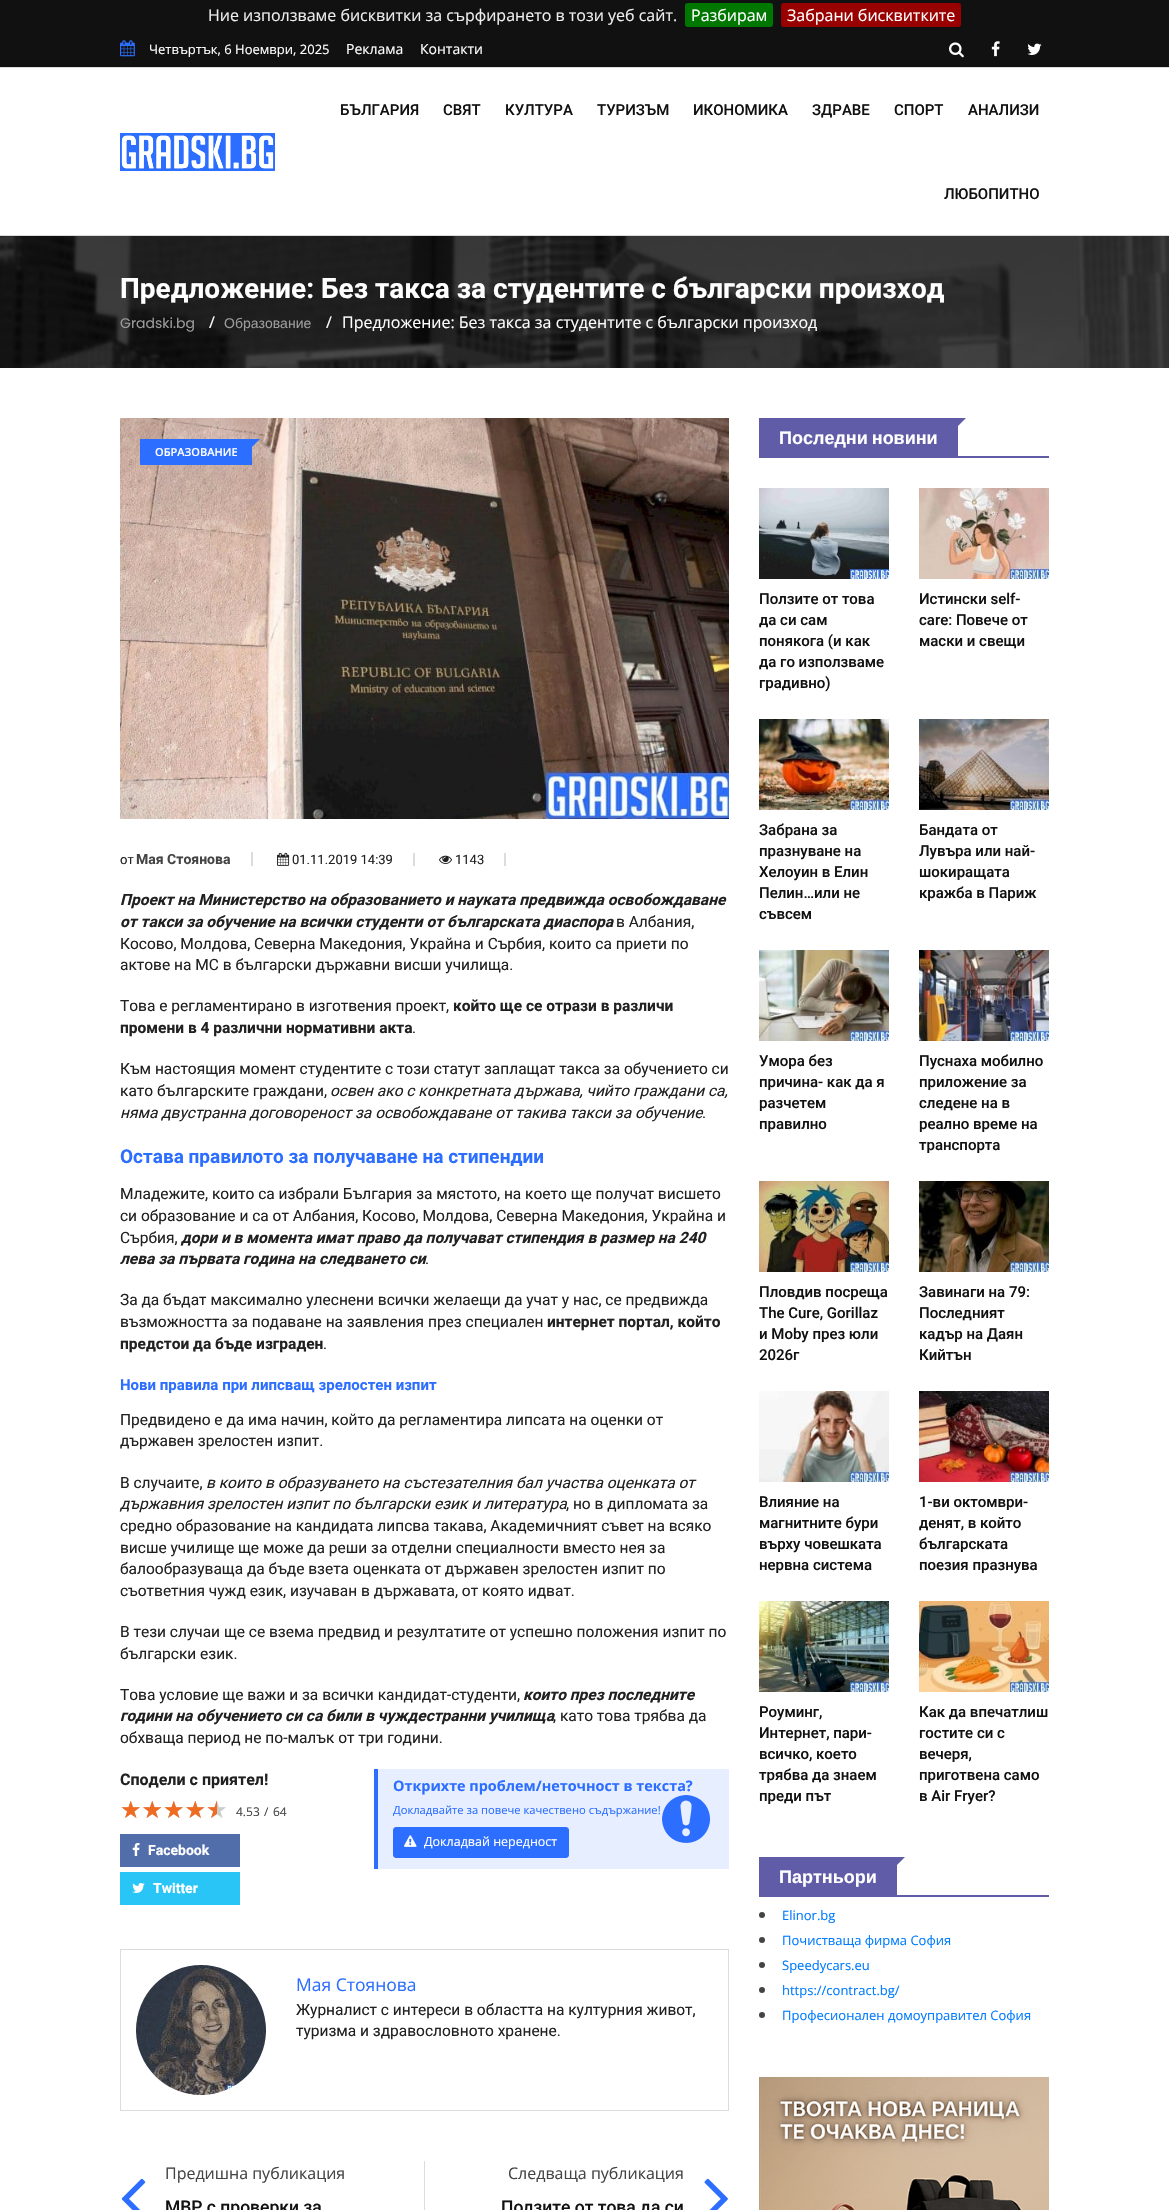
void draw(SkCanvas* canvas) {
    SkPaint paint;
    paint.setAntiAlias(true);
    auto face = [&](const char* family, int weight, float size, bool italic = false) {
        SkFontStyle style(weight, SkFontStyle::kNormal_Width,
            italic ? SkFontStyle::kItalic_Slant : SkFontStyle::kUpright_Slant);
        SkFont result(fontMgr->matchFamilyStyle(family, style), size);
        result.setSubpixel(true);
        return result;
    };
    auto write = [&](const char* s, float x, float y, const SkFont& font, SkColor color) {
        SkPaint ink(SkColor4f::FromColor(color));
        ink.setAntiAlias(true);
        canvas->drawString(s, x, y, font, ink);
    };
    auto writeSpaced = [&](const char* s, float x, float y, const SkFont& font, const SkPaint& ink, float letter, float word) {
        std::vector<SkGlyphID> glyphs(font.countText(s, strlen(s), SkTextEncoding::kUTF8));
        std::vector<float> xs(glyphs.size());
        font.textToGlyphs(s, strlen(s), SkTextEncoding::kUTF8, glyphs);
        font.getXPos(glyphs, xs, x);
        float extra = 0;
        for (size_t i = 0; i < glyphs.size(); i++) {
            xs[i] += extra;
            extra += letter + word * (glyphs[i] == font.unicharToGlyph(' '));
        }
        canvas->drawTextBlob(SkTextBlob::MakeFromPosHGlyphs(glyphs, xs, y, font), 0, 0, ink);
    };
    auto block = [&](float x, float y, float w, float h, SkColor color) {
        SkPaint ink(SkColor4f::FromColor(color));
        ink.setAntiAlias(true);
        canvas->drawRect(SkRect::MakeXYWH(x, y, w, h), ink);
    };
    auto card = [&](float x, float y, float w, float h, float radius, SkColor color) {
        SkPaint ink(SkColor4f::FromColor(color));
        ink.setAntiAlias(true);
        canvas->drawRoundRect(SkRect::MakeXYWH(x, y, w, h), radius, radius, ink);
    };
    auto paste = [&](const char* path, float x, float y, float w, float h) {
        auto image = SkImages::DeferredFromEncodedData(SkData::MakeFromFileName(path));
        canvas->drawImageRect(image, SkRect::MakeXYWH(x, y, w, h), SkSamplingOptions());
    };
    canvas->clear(SkColorSetRGB(17, 17, 17));
    auto kFont1 = face("Open Sans", 400, 16);
    write("Ние използваме бисквитки за сърфирането в този уеб сайт.", 208, 21, kFont1, SkColorSetRGB(238, 238, 238));
    card(685, 3, 88, 24, 3, SkColorSetRGB(0, 119, 0));
    write("Разбирам", 691, 21, kFont1, SK_ColorWHITE);
    card(781, 3, 180, 24, 3, SkColorSetRGB(153, 0, 0));
    write("Забрани бисквитките", 787, 21, kFont1, SK_ColorWHITE);
    paste("pic1.png", 120, 40, 15, 17);
    auto kFont2 = face("Open Sans", 400, 13);
    write("Четвъртък, 6 Ноември, 2025", 149, 54, kFont2, SK_ColorWHITE);
    auto kFont3 = face("Open Sans", 400, 14);
    write("Реклама", 346, 54, kFont3, SK_ColorWHITE);
    write("Контакти", 420, 54, kFont3, SK_ColorWHITE);
    paste("pic2.png", 949, 42, 15, 16);
    paste("pic3.png", 991, 41, 9, 16);
    paste("pic4.png", 1027, 43, 15, 12);
    block(0, 67, 1169, 1, SkColorSetRGB(218, 218, 218));
    block(0, 68, 1169, 167, SK_ColorWHITE);
    paste("pic5.png", 120, 133, 155, 38);
    auto kFont4 = face("Roboto", 500, 15);
    write("БЪЛГАРИЯ", 340, 115, kFont4, SkColorSetRGB(17, 17, 17));
    write("СВЯТ", 443, 115, kFont4, SkColorSetRGB(17, 17, 17));
    write("КУЛТУРА", 505, 115, kFont4, SkColorSetRGB(17, 17, 17));
    write("ТУРИЗЪМ", 597, 115, kFont4, SkColorSetRGB(17, 17, 17));
    write("ИКОНОМИКА", 693, 115, kFont4, SkColorSetRGB(17, 17, 17));
    write("ЗДРАВЕ", 812, 115, kFont4, SkColorSetRGB(17, 17, 17));
    write("СПОРТ", 894, 115, kFont4, SkColorSetRGB(17, 17, 17));
    write("АНАЛИЗИ", 968, 115, kFont4, SkColorSetRGB(17, 17, 17));
    write("ЛЮБОПИТНО", 944, 199, kFont4, SkColorSetRGB(17, 17, 17));
    block(0, 235, 1169, 1, SkColorSetRGB(218, 218, 218));
    paste("pic6.png", 0, 236, 1169, 132);
    auto kFont5 = face("Roboto", 700, 28);
    write("Предложение: Без такса за студентите с български произход", 120, 298, kFont5, SK_ColorWHITE);
    auto kFont6 = face("Poppins", 400, 14);
    write("Gradski.bg", 120, 328, kFont6, SkColorSetRGB(157, 156, 156));
    write("/", 209, 328, kFont1, SK_ColorWHITE);
    auto kFont7 = face("Liberation Sans", 400, 14);
    write("Образование", 224, 328, kFont7, SkColorSetRGB(157, 156, 156));
    write("/", 326, 328, kFont1, SK_ColorWHITE);
    write("Предложение: Без такса за студентите с български произход", 342, 328, kFont1, SK_ColorWHITE);
    block(0, 368, 1169, 1842, SK_ColorWHITE);
    paste("pic7.png", 120, 418, 609, 401);
    block(140, 439, 112, 26, SkColorSetRGB(44, 110, 255));
    paint.setColor(SkColorSetRGB(44, 110, 255));
    canvas->drawPath(SkPathBuilder().moveTo(252, 439).lineTo(260, 439).lineTo(252, 447).close().detach(), paint);
    auto kFont8 = face("Open Sans", 600, 11);
    write("ОБРАЗОВАНИЕ", 155, 456, kFont8, SK_ColorWHITE);
    block(251, 852, 2, 14, SkColorSetRGB(220, 220, 220));
    auto kFont9 = face("Roboto", 400, 13);
    write("от", 120, 864, kFont9, SkColorSetRGB(33, 33, 33));
    auto kFont10 = face("Roboto", 700, 14);
    write("Мая Стоянова", 136, 864, kFont10, SkColorSetRGB(68, 68, 68));
    block(413, 853, 2, 13, SkColorSetRGB(220, 220, 220));
    paste("pic8.png", 277, 852, 13, 14);
    write("01.11.2019 14:39", 292, 864, kFont9, SkColorSetRGB(33, 33, 33));
    block(504, 853, 2, 13, SkColorSetRGB(220, 220, 220));
    paste("pic9.png", 439, 855, 13, 9);
    write("1143", 455, 864, kFont9, SkColorSetRGB(33, 33, 33));
    auto kFont11 = face("Roboto", 700, 15.5f, true);
    write("Проект на Министерство на образованието и науката предвижда освобождаване", 120, 905, kFont11, SkColorSetRGB(33, 33, 33));
    write("от такси за обучение на всички студенти от българската диаспора", 120, 927, kFont11, SkColorSetRGB(33, 33, 33));
    auto kFont12 = face("Roboto", 400, 15.5f);
    write("в Албания,", 616, 927, kFont12, SkColorSetRGB(33, 33, 33));
    write("Косово, Молдова, Северна Македония, Украйна и Сърбия, които са приети по", 120, 949, kFont12, SkColorSetRGB(33, 33, 33));
    write("актове на МС в български държавни висши училища.", 120, 970, kFont12, SkColorSetRGB(33, 33, 33));
    write("Това е регламентирано в изготвения проект,", 120, 1011, kFont12, SkColorSetRGB(33, 33, 33));
    auto kFont13 = face("Roboto", 700, 15.5f);
    write("който ще се отрази в различи", 453, 1011, kFont13, SkColorSetRGB(33, 33, 33));
    write("промени в 4 различни нормативни акта", 120, 1033, kFont13, SkColorSetRGB(33, 33, 33));
    write(".", 412, 1033, kFont12, SkColorSetRGB(33, 33, 33));
    write("Към настоящия момент студентите с този статут заплащат такса за обучението си", 120, 1074, kFont12, SkColorSetRGB(33, 33, 33));
    write("като българските граждани,", 120, 1096, kFont12, SkColorSetRGB(33, 33, 33));
    auto kFont14 = face("Roboto", 400, 15.5f, true);
    write("освен ако с конкретната държава, чийто граждани са,", 330, 1096, kFont14, SkColorSetRGB(33, 33, 33));
    write("няма двустранна договореност за освобождаване от такива такси за обучение", 120, 1118, kFont14, SkColorSetRGB(33, 33, 33));
    write(".", 702, 1118, kFont12, SkColorSetRGB(33, 33, 33));
    auto kFont15 = face("Roboto", 700, 19);
    write("Остава правилото за получаване на стипендии", 120, 1163, kFont15, SkColorSetRGB(44, 110, 255));
    write("Младежите, които са избрали България за мястото, на което ще получат висшето", 120, 1199, kFont12, SkColorSetRGB(33, 33, 33));
    write("си образование и са от Албания, Косово, Молдова, Северна Македония, Украйна и", 120, 1221, kFont12, SkColorSetRGB(33, 33, 33));
    write("Сърбия,", 120, 1243, kFont12, SkColorSetRGB(33, 33, 33));
    write("дори и в момента имат право да получават стипендия в размер на 240", 181, 1243, kFont11, SkColorSetRGB(33, 33, 33));
    write("лева за първата година на следването си", 120, 1264, kFont11, SkColorSetRGB(33, 33, 33));
    write(".", 425, 1264, kFont12, SkColorSetRGB(33, 33, 33));
    write("За да бъдат максимално улеснени всички желаещи да учат у нас, се предвижда", 120, 1305, kFont12, SkColorSetRGB(33, 33, 33));
    write("възможността за подаване на заявления през специален", 120, 1327, kFont12, SkColorSetRGB(33, 33, 33));
    write("интернет портал, който", 547, 1327, kFont13, SkColorSetRGB(33, 33, 33));
    write("предстои да бъде изграден", 120, 1349, kFont13, SkColorSetRGB(33, 33, 33));
    write(".", 323, 1349, kFont12, SkColorSetRGB(33, 33, 33));
    auto kFont16 = face("Roboto", 700, 15);
    write("Нови правила при липсващ зрелостен изпит", 120, 1390, kFont16, SkColorSetRGB(44, 110, 255));
    write("Предвидено е да има начин, който да регламентира липсата на оценки от", 120, 1425, kFont12, SkColorSetRGB(33, 33, 33));
    write("държавен зрелостен изпит.", 120, 1446, kFont12, SkColorSetRGB(33, 33, 33));
    write("В случаите,", 120, 1488, kFont12, SkColorSetRGB(33, 33, 33));
    write("в които в образуването на състезателния бал участва оценката от", 206, 1488, kFont14, SkColorSetRGB(33, 33, 33));
    write("държавния зрелостен изпит по български език и литература", 120, 1509, kFont14, SkColorSetRGB(33, 33, 33));
    write(", но в дипломата за", 566, 1509, kFont12, SkColorSetRGB(33, 33, 33));
    write("средно образование на кандидата липсва такава, Академичният съвет на всяко", 120, 1531, kFont12, SkColorSetRGB(33, 33, 33));
    write("висше училище ще може да реши за отделни специалности вместо нея за", 120, 1553, kFont12, SkColorSetRGB(33, 33, 33));
    write("балообразуваща да бъде взета оценката от държавен зрелостен изпит по", 120, 1574, kFont12, SkColorSetRGB(33, 33, 33));
    write("съответния чужд език, изучаван в държавата, от която идват.", 120, 1596, kFont12, SkColorSetRGB(33, 33, 33));
    write("В тези случаи ще се взема предвид и резултатите от успешно положения изпит по", 120, 1637, kFont12, SkColorSetRGB(33, 33, 33));
    write("български език.", 120, 1659, kFont12, SkColorSetRGB(33, 33, 33));
    write("Това условие ще важи и за всички кандидат-студенти,", 120, 1700, kFont12, SkColorSetRGB(33, 33, 33));
    write("които през последните", 523, 1700, kFont11, SkColorSetRGB(33, 33, 33));
    write("години на обучението си са били в чуждестранни училища", 120, 1721, kFont11, SkColorSetRGB(33, 33, 33));
    write(", като това трябва да", 553, 1721, kFont12, SkColorSetRGB(33, 33, 33));
    write("обхваща период не по-малък от три години.", 120, 1743, kFont12, SkColorSetRGB(33, 33, 33));
    auto kFont17 = face("Roboto", 700, 16);
    write("Сподели с приятел!", 120, 1785, kFont17, SkColorSetRGB(33, 33, 33));
    auto kFont18 = face("DejaVu Sans", 400, 24);
    write("★★★★★", 120, 1818, kFont18, SkColorSetRGB(204, 204, 204));
    canvas->save();
    canvas->clipRect(SkRect::MakeXYWH(120, 1797, 97, 24));
    write("★★★★★", 120, 1818, kFont18, SkColorSetRGB(239, 107, 34));
    canvas->restore();
    auto kFont19 = face("Open Sans", 400, 12);
    write("4.53", 236, 1816, kFont19, SkColorSetRGB(68, 68, 68));
    write("/", 264, 1816, kFont19, SkColorSetRGB(68, 68, 68));
    write("64", 273, 1816, kFont19, SkColorSetRGB(68, 68, 68));
    block(120, 1834, 120, 33, SkColorSetRGB(81, 110, 171));
    paste("pic10.png", 132, 1843, 8, 13);
    write("Facebook", 148, 1855, kFont10, SK_ColorWHITE);
    block(120, 1872, 120, 33, SkColorSetRGB(41, 197, 246));
    paste("pic11.png", 132, 1883, 13, 10);
    write("Twitter", 153, 1893, kFont10, SK_ColorWHITE);
    block(378, 1769, 351, 100, SkColorSetRGB(231, 238, 255));
    paste("pic12.png", 662, 1795, 48, 48);
    block(374, 1769, 4, 100, SkColorSetRGB(44, 110, 255));
    auto kFont20 = face("Open Sans", 700, 14.4f);
    write("Открихте проблем/неточност в текста?", 393, 1791, kFont20, SkColorSetRGB(44, 110, 255));
    auto kFont21 = face("Open Sans", 400, 11.2f);
    write("Докладвайте за повече качествено съдържание!", 393, 1814, kFont21, SkColorSetRGB(44, 110, 255));
    canvas->drawRoundRect(SkRect::MakeXYWH(393.5f, 1827.5f, 175, 30), 2.5f, 2.5f, paint);
    paint.setStyle(SkPaint::kStroke_Style);
    paint.setStrokeWidth(1);
    canvas->drawRoundRect(SkRect::MakeXYWH(393.5f, 1827.5f, 175, 30), 2.5f, 2.5f, paint);
    paste("pic13.png", 404, 1835, 13, 12);
    auto kFont22 = face("Open Sans", 400, 12.5f);
    write("Докладвай нередност", 424, 1846, kFont22, SK_ColorWHITE);
    paint.setColor(SkColorSetRGB(220, 220, 220));
    canvas->drawRect(SkRect::MakeXYWH(120.5f, 1949.5f, 608, 161), paint);
    paste("pic14.png", 136, 1965, 130, 130);
    auto kFont23 = face("Open Sans", 400, 17.5f);
    write("Мая Стоянова", 296, 1991, kFont23, SkColorSetRGB(44, 110, 255));
    write("Журналист с интереси в областта на културния живот,", 296, 2015, kFont12, SkColorSetRGB(33, 33, 33));
    write("туризма и здравословното хранене.", 296, 2036, kFont12, SkColorSetRGB(33, 33, 33));
    write("Предишна публикация", 165, 2179, kFont1, SkColorSetRGB(68, 68, 68));
    paste("pic15.png", 121, 2178, 25, 32);
    auto kFont24 = face("Roboto", 500, 17.5f);
    write("МВР с проверки за", 165, 2213, kFont24, SkColorSetRGB(17, 17, 17));
    block(424, 2161, 1, 49, SkColorSetRGB(220, 220, 220));
    write("Следваща публикация", 508, 2179, kFont1, SkColorSetRGB(68, 68, 68));
    write("Ползите от това да си", 501, 2213, kFont24, SkColorSetRGB(17, 17, 17));
    paste("pic16.png", 704, 2178, 24, 32);
    block(759, 418, 199, 38, SkColorSetRGB(96, 92, 168));
    paint.setStyle(SkPaint::kFill_Style);
    paint.setColor(SkColorSetRGB(96, 92, 168));
    canvas->drawPath(SkPathBuilder().moveTo(958, 418).lineTo(966, 418).lineTo(958, 426).close().detach(), paint);
    auto kFont25 = face("Liberation Sans", 700, 18);
    paint.setColor(SK_ColorWHITE);
    writeSpaced("Последни новини", 779, 444, kFont25, paint, 0, -1);
    block(759, 456, 290, 2, SkColorSetRGB(96, 92, 168));
    paste("pic17.png", 759, 488, 130, 91);
    write("Ползите от това", 759, 604, kFont4, SkColorSetRGB(17, 17, 17));
    write("да си сам", 759, 625, kFont4, SkColorSetRGB(17, 17, 17));
    write("понякога (и как", 759, 646, kFont4, SkColorSetRGB(17, 17, 17));
    write("да го използваме", 759, 667, kFont4, SkColorSetRGB(17, 17, 17));
    write("градивно)", 759, 688, kFont4, SkColorSetRGB(17, 17, 17));
    paste("pic18.png", 919, 488, 130, 91);
    write("Истински self-", 919, 604, kFont4, SkColorSetRGB(17, 17, 17));
    write("care: Повече от", 919, 625, kFont4, SkColorSetRGB(17, 17, 17));
    write("маски и свещи", 919, 646, kFont4, SkColorSetRGB(17, 17, 17));
    paste("pic19.png", 759, 719, 130, 91);
    write("Забрана за", 759, 835, kFont4, SkColorSetRGB(17, 17, 17));
    write("празнуване на", 759, 856, kFont4, SkColorSetRGB(17, 17, 17));
    write("Хелоуин в Елин", 759, 877, kFont4, SkColorSetRGB(17, 17, 17));
    write("Пелин…или не", 759, 898, kFont4, SkColorSetRGB(17, 17, 17));
    write("съвсем", 759, 919, kFont4, SkColorSetRGB(17, 17, 17));
    paste("pic20.png", 919, 719, 130, 91);
    write("Бандата от", 919, 835, kFont4, SkColorSetRGB(17, 17, 17));
    write("Лувъра или най-", 919, 856, kFont4, SkColorSetRGB(17, 17, 17));
    write("шокиращата", 919, 877, kFont4, SkColorSetRGB(17, 17, 17));
    write("кражба в Париж", 919, 898, kFont4, SkColorSetRGB(17, 17, 17));
    paste("pic21.png", 759, 950, 130, 91);
    write("Умора без", 759, 1066, kFont4, SkColorSetRGB(17, 17, 17));
    write("причина- как да я", 759, 1087, kFont4, SkColorSetRGB(17, 17, 17));
    write("разчетем", 759, 1108, kFont4, SkColorSetRGB(17, 17, 17));
    write("правилно", 759, 1129, kFont4, SkColorSetRGB(17, 17, 17));
    paste("pic22.png", 919, 950, 130, 91);
    write("Пуснаха мобилно", 919, 1066, kFont4, SkColorSetRGB(17, 17, 17));
    write("приложение за", 919, 1087, kFont4, SkColorSetRGB(17, 17, 17));
    write("следене на в", 919, 1108, kFont4, SkColorSetRGB(17, 17, 17));
    write("реално време на", 919, 1129, kFont4, SkColorSetRGB(17, 17, 17));
    write("транспорта", 919, 1150, kFont4, SkColorSetRGB(17, 17, 17));
    paste("pic23.png", 759, 1181, 130, 91);
    write("Пловдив посреща", 759, 1297, kFont4, SkColorSetRGB(17, 17, 17));
    write("The Cure, Gorillaz", 759, 1318, kFont4, SkColorSetRGB(17, 17, 17));
    write("и Moby през юли", 759, 1339, kFont4, SkColorSetRGB(17, 17, 17));
    write("2026г", 759, 1360, kFont4, SkColorSetRGB(17, 17, 17));
    paste("pic24.png", 919, 1181, 130, 91);
    write("Завинаги на 79:", 919, 1297, kFont4, SkColorSetRGB(17, 17, 17));
    write("Последният", 919, 1318, kFont4, SkColorSetRGB(17, 17, 17));
    write("кадър на Даян", 919, 1339, kFont4, SkColorSetRGB(17, 17, 17));
    write("Кийтън", 919, 1360, kFont4, SkColorSetRGB(17, 17, 17));
    paste("pic25.png", 759, 1391, 130, 91);
    write("Влияние на", 759, 1507, kFont4, SkColorSetRGB(17, 17, 17));
    write("магнитните бури", 759, 1528, kFont4, SkColorSetRGB(17, 17, 17));
    write("върху човешката", 759, 1549, kFont4, SkColorSetRGB(17, 17, 17));
    write("нервна система", 759, 1570, kFont4, SkColorSetRGB(17, 17, 17));
    paste("pic26.png", 919, 1391, 130, 91);
    write("1-ви октомври-", 919, 1507, kFont4, SkColorSetRGB(17, 17, 17));
    write("денят, в който", 919, 1528, kFont4, SkColorSetRGB(17, 17, 17));
    write("българската", 919, 1549, kFont4, SkColorSetRGB(17, 17, 17));
    write("поезия празнува", 919, 1570, kFont4, SkColorSetRGB(17, 17, 17));
    paste("pic27.png", 759, 1601, 130, 91);
    write("Роуминг,", 759, 1717, kFont4, SkColorSetRGB(17, 17, 17));
    write("Интернет, пари-", 759, 1738, kFont4, SkColorSetRGB(17, 17, 17));
    write("всичко, което", 759, 1759, kFont4, SkColorSetRGB(17, 17, 17));
    write("трябва да знаем", 759, 1780, kFont4, SkColorSetRGB(17, 17, 17));
    write("преди път", 759, 1801, kFont4, SkColorSetRGB(17, 17, 17));
    paste("pic28.png", 919, 1601, 130, 91);
    write("Как да впечатлиш", 919, 1717, kFont4, SkColorSetRGB(17, 17, 17));
    write("гостите си с", 919, 1738, kFont4, SkColorSetRGB(17, 17, 17));
    write("вечеря,", 919, 1759, kFont4, SkColorSetRGB(17, 17, 17));
    write("приготвена само", 919, 1780, kFont4, SkColorSetRGB(17, 17, 17));
    write("в Air Fryer?", 919, 1801, kFont4, SkColorSetRGB(17, 17, 17));
    block(759, 1857, 138, 38, SkColorSetRGB(96, 92, 168));
    paint.setColor(SkColorSetRGB(96, 92, 168));
    canvas->drawPath(SkPathBuilder().moveTo(897, 1857).lineTo(905, 1857).lineTo(897, 1865).close().detach(), paint);
    write("Партньори", 779, 1883, kFont25, SK_ColorWHITE);
    block(759, 1895, 290, 2, SkColorSetRGB(96, 92, 168));
    paint.setColor(SkColorSetRGB(68, 68, 68));
    canvas->drawCircle(762, 1915, 3, paint);
    write("Elinor.bg", 782, 1920, kFont2, SkColorSetRGB(0, 123, 255));
    canvas->drawCircle(762, 1940, 3, paint);
    write("Почистваща фирма София", 782, 1945, kFont2, SkColorSetRGB(0, 123, 255));
    canvas->drawCircle(762, 1965, 3, paint);
    write("Speedycars.eu", 782, 1970, kFont2, SkColorSetRGB(0, 123, 255));
    canvas->drawCircle(762, 1990, 3, paint);
    write("https://contract.bg/", 782, 1995, kFont2, SkColorSetRGB(0, 123, 255));
    canvas->drawCircle(762, 2015, 3, paint);
    write("Професионален домоуправител София", 782, 2020, kFont2, SkColorSetRGB(0, 123, 255));
    paste("pic29.png", 759, 2077, 290, 133);
}
